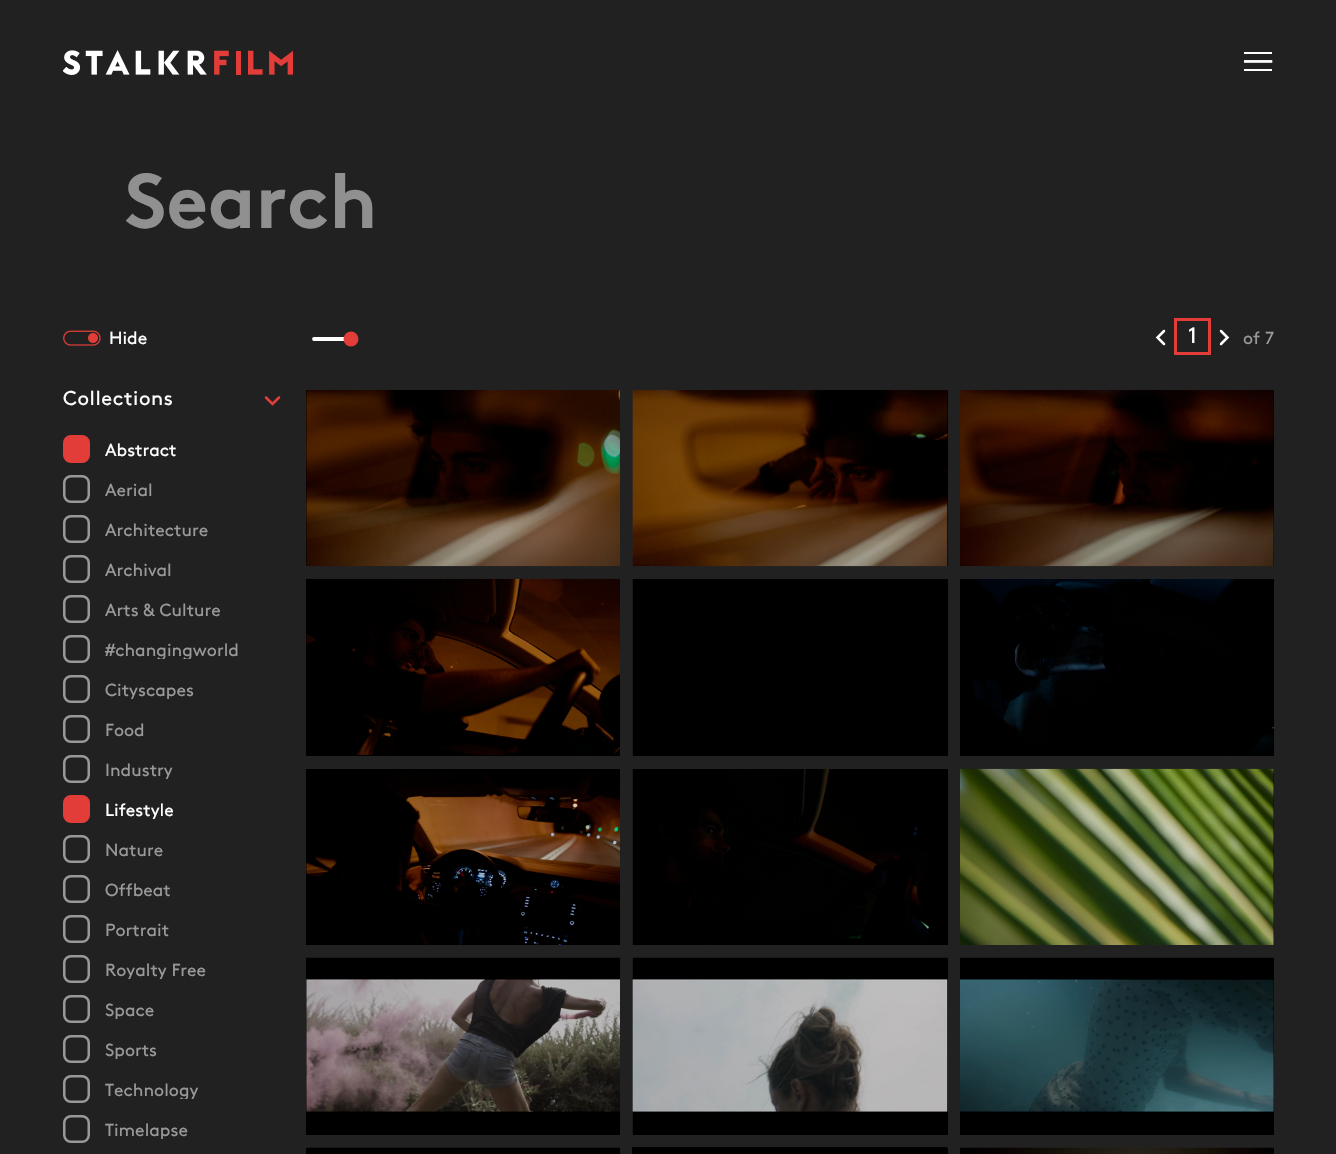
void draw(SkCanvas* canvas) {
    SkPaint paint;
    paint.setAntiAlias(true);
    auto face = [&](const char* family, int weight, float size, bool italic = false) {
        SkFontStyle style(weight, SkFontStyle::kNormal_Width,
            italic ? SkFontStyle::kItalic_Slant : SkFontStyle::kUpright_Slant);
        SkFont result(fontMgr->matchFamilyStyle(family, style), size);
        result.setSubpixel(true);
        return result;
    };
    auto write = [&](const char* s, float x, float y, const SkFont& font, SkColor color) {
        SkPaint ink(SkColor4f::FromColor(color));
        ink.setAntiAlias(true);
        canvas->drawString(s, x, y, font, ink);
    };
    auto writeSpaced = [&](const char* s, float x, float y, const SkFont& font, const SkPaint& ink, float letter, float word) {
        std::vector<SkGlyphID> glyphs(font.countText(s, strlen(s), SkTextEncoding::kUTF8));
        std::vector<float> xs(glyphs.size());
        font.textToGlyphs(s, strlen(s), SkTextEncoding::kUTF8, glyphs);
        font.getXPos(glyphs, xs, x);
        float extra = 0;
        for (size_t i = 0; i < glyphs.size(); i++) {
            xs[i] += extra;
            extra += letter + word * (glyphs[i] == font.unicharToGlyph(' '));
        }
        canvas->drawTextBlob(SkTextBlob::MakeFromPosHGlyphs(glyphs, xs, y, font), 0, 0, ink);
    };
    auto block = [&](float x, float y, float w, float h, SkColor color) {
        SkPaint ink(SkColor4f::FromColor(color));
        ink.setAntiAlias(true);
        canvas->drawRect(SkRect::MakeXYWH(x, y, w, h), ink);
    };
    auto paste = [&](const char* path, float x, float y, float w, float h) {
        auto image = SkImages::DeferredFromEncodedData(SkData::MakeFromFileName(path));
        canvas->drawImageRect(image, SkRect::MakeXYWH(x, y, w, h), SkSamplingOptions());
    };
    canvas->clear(SkColorSetRGB(33, 33, 33));
    paste("pic1.png", 63, 50, 230, 25);
    paste("pic2.png", 1244, 52, 29, 19);
    auto kFont1 = face("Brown", 700, 77.5f);
    write("Search", 125, 228, kFont1, SkColorSetRGB(144, 144, 144));
    paste("pic3.png", 63, 330, 38, 16);
    auto kFont2 = face("Brown", 400, 17.5f);
    write("Hide", 109, 344, kFont2, SK_ColorWHITE);
    paint.setStyle(SkPaint::kStroke_Style);
    paint.setStrokeWidth(3.8f);
    paint.setStrokeCap(SkPaint::kRound_Cap);
    paint.setColor(SK_ColorWHITE);
    canvas->drawPath(SkPathBuilder().moveTo(314, 339).lineTo(351, 339).detach(), paint);
    paint.setStyle(SkPaint::kFill_Style);
    paint.setColor(SkColorSetRGB(227, 61, 57));
    canvas->drawCircle(351, 339, 7.5f, paint);
    paint.setStyle(SkPaint::kStroke_Style);
    paint.setStrokeWidth(2.5f);
    paint.setColor(SK_ColorWHITE);
    canvas->drawPath(SkPathBuilder().moveTo(1164, 331).lineTo(1157.5f, 337.5f).lineTo(1164, 344).detach(), paint);
    paint.setStrokeWidth(3);
    paint.setStrokeCap(SkPaint::kButt_Cap);
    paint.setColor(SkColorSetRGB(227, 61, 57));
    canvas->drawRect(SkRect::MakeXYWH(1175.5f, 319.5f, 34, 34), paint);
    auto kFont3 = face("Brown", 400, 22);
    write("1", 1188, 343, kFont3, SK_ColorWHITE);
    paint.setStrokeWidth(2.5f);
    paint.setStrokeCap(SkPaint::kRound_Cap);
    paint.setColor(SK_ColorWHITE);
    canvas->drawPath(SkPathBuilder().moveTo(1221, 331).lineTo(1227.5f, 337.5f).lineTo(1221, 344).detach(), paint);
    write("of 7", 1243, 344, kFont2, SkColorSetRGB(153, 153, 153));
    auto kFont4 = face("Brown", 400, 20);
    paint.setStyle(SkPaint::kFill_Style);
    writeSpaced("Collections", 63, 405, kFont4, paint, 0.6f, 0);
    paint.setStyle(SkPaint::kStroke_Style);
    paint.setColor(SkColorSetRGB(227, 61, 57));
    canvas->drawPath(SkPathBuilder().moveTo(266, 397.5f).lineTo(272.5f, 404).lineTo(279, 397.5f).detach(), paint);
    paint.setStyle(SkPaint::kFill_Style);
    canvas->drawRoundRect(SkRect::MakeXYWH(64.25f, 436.25f, 24.5f, 25.5f), 6.75f, 6.75f, paint);
    paint.setStyle(SkPaint::kStroke_Style);
    paint.setStrokeCap(SkPaint::kButt_Cap);
    canvas->drawRoundRect(SkRect::MakeXYWH(64.25f, 436.25f, 24.5f, 25.5f), 6.75f, 6.75f, paint);
    write("Abstract", 105, 456, kFont2, SK_ColorWHITE);
    paint.setColor(SkColorSetRGB(153, 153, 153));
    canvas->drawRoundRect(SkRect::MakeXYWH(64.25f, 476.25f, 24.5f, 25.5f), 6.75f, 6.75f, paint);
    write("Aerial", 105, 496, kFont2, SkColorSetRGB(153, 153, 153));
    canvas->drawRoundRect(SkRect::MakeXYWH(64.25f, 516.25f, 24.5f, 25.5f), 6.75f, 6.75f, paint);
    write("Architecture", 105, 536, kFont2, SkColorSetRGB(153, 153, 153));
    canvas->drawRoundRect(SkRect::MakeXYWH(64.25f, 556.25f, 24.5f, 25.5f), 6.75f, 6.75f, paint);
    write("Archival", 105, 576, kFont2, SkColorSetRGB(153, 153, 153));
    canvas->drawRoundRect(SkRect::MakeXYWH(64.25f, 596.25f, 24.5f, 25.5f), 6.75f, 6.75f, paint);
    write("Arts & Culture", 105, 616, kFont2, SkColorSetRGB(153, 153, 153));
    canvas->drawRoundRect(SkRect::MakeXYWH(64.25f, 636.25f, 24.5f, 25.5f), 6.75f, 6.75f, paint);
    canvas->save();
    canvas->clipRect(SkRect::MakeXYWH(105, 643, 134, 16));
    write("#changingworld", 105, 656, kFont2, SkColorSetRGB(153, 153, 153));
    canvas->restore();
    canvas->drawRoundRect(SkRect::MakeXYWH(64.25f, 676.25f, 24.5f, 25.5f), 6.75f, 6.75f, paint);
    canvas->save();
    canvas->clipRect(SkRect::MakeXYWH(105, 683, 89, 16));
    write("Cityscapes", 105, 696, kFont2, SkColorSetRGB(153, 153, 153));
    canvas->restore();
    canvas->drawRoundRect(SkRect::MakeXYWH(64.25f, 716.25f, 24.5f, 25.5f), 6.75f, 6.75f, paint);
    write("Food", 105, 736, kFont2, SkColorSetRGB(153, 153, 153));
    canvas->drawRoundRect(SkRect::MakeXYWH(64.25f, 756.25f, 24.5f, 25.5f), 6.75f, 6.75f, paint);
    canvas->save();
    canvas->clipRect(SkRect::MakeXYWH(105, 763, 68, 16));
    write("Industry", 105, 776, kFont2, SkColorSetRGB(153, 153, 153));
    canvas->restore();
    paint.setStyle(SkPaint::kFill_Style);
    paint.setColor(SkColorSetRGB(227, 61, 57));
    canvas->drawRoundRect(SkRect::MakeXYWH(64.25f, 796.25f, 24.5f, 25.5f), 6.75f, 6.75f, paint);
    paint.setStyle(SkPaint::kStroke_Style);
    canvas->drawRoundRect(SkRect::MakeXYWH(64.25f, 796.25f, 24.5f, 25.5f), 6.75f, 6.75f, paint);
    canvas->save();
    canvas->clipRect(SkRect::MakeXYWH(105, 803, 69, 16));
    write("Lifestyle", 105, 816, kFont2, SK_ColorWHITE);
    canvas->restore();
    paint.setColor(SkColorSetRGB(153, 153, 153));
    canvas->drawRoundRect(SkRect::MakeXYWH(64.25f, 836.25f, 24.5f, 25.5f), 6.75f, 6.75f, paint);
    write("Nature", 105, 856, kFont2, SkColorSetRGB(153, 153, 153));
    canvas->drawRoundRect(SkRect::MakeXYWH(64.25f, 876.25f, 24.5f, 25.5f), 6.75f, 6.75f, paint);
    write("Offbeat", 105, 896, kFont2, SkColorSetRGB(153, 153, 153));
    canvas->drawRoundRect(SkRect::MakeXYWH(64.25f, 916.25f, 24.5f, 25.5f), 6.75f, 6.75f, paint);
    write("Portrait", 105, 936, kFont2, SkColorSetRGB(153, 153, 153));
    canvas->drawRoundRect(SkRect::MakeXYWH(64.25f, 956.25f, 24.5f, 25.5f), 6.75f, 6.75f, paint);
    canvas->save();
    canvas->clipRect(SkRect::MakeXYWH(105, 963, 101, 16));
    write("Royalty Free", 105, 976, kFont2, SkColorSetRGB(153, 153, 153));
    canvas->restore();
    canvas->drawRoundRect(SkRect::MakeXYWH(64.25f, 996.25f, 24.5f, 25.5f), 6.75f, 6.75f, paint);
    canvas->save();
    canvas->clipRect(SkRect::MakeXYWH(105, 1003, 49, 16));
    write("Space", 105, 1016, kFont2, SkColorSetRGB(153, 153, 153));
    canvas->restore();
    canvas->drawRoundRect(SkRect::MakeXYWH(64.25f, 1036.25f, 24.5f, 25.5f), 6.75f, 6.75f, paint);
    canvas->save();
    canvas->clipRect(SkRect::MakeXYWH(105, 1043, 53, 16));
    write("Sports", 105, 1056, kFont2, SkColorSetRGB(153, 153, 153));
    canvas->restore();
    canvas->drawRoundRect(SkRect::MakeXYWH(64.25f, 1076.25f, 24.5f, 25.5f), 6.75f, 6.75f, paint);
    canvas->save();
    canvas->clipRect(SkRect::MakeXYWH(105, 1083, 94, 16));
    write("Technology", 105, 1096, kFont2, SkColorSetRGB(153, 153, 153));
    canvas->restore();
    canvas->drawRoundRect(SkRect::MakeXYWH(64.25f, 1116.25f, 24.5f, 25.5f), 6.75f, 6.75f, paint);
    canvas->save();
    canvas->clipRect(SkRect::MakeXYWH(105, 1123, 83, 16));
    write("Timelapse", 105, 1136, kFont2, SkColorSetRGB(153, 153, 153));
    canvas->restore();
    block(306, 390, 1, 176, SK_ColorBLACK);
    paste("pic4.png", 306, 390, 314, 177);
    block(947, 390, 1, 176, SK_ColorBLACK);
    paste("pic5.png", 632, 390, 316, 177);
    block(1273, 390, 1, 176, SK_ColorBLACK);
    paste("pic6.png", 960, 390, 314, 177);
    block(306, 755, 314, 1, SK_ColorBLACK);
    block(306, 579, 1, 176, SK_ColorBLACK);
    paste("pic7.png", 306, 578, 314, 177);
    block(633, 579, 315, 177, SK_ColorBLACK);
    block(632, 579, 1, 176, SkColorSetRGB(25, 25, 25));
    block(960, 579, 314, 177, SK_ColorBLACK);
    paste("pic8.png", 973, 579, 301, 176);
    block(306, 769, 314, 176, SK_ColorBLACK);
    paste("pic9.png", 306, 771, 314, 174);
    block(929, 769, 19, 176, SK_ColorBLACK);
    paste("pic10.png", 632, 769, 297, 176);
    block(1273, 769, 1, 176, SK_ColorBLACK);
    paste("pic11.png", 960, 768, 314, 177);
    block(306, 958, 314, 177, SK_ColorBLACK);
    paste("pic12.png", 306, 957, 314, 155);
    block(633, 958, 315, 177, SK_ColorBLACK);
    paste("pic13.png", 632, 957, 316, 177);
    block(960, 958, 314, 177, SK_ColorBLACK);
    paste("pic14.png", 960, 957, 314, 155);
    block(306, 1148, 314, 6, SK_ColorBLACK);
    paste("pic15.png", 306, 1147, 314, 1);
    block(947, 1148, 1, 6, SK_ColorBLACK);
    block(632, 1147, 315, 7, SK_ColorBLACK);
    block(1273, 1148, 1, 6, SK_ColorBLACK);
    paste("pic16.png", 960, 1147, 314, 7);
    block(1028, 1148, 203, 6, SkColorSetARGB(38, 0, 0, 0));
}
